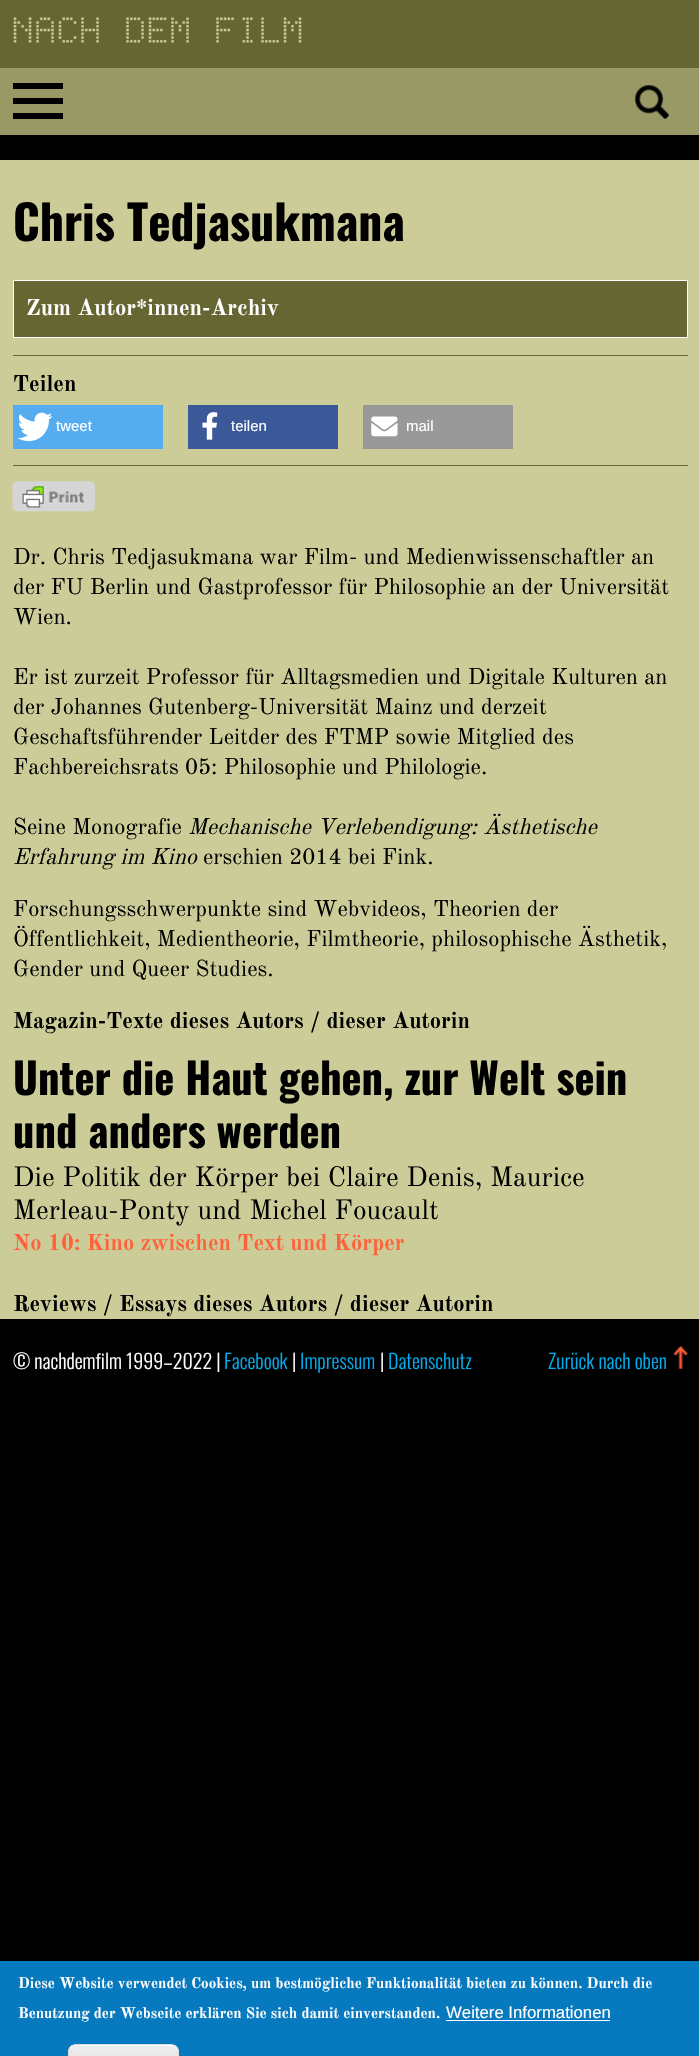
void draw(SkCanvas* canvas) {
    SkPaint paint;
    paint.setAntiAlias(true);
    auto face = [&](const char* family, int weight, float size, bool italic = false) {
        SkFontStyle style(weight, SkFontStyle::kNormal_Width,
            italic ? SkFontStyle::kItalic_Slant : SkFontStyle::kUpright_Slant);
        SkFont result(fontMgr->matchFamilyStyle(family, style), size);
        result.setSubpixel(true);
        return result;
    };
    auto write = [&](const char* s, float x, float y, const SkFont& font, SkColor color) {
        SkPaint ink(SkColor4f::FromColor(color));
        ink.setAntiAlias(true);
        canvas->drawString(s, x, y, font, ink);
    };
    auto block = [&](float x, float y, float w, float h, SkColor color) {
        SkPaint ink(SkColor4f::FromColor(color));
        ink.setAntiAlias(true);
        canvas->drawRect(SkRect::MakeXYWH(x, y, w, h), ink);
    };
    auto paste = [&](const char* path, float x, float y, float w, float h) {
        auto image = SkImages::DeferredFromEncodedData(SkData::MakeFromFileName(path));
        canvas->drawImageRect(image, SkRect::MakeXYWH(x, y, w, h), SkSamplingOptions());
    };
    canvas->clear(SK_ColorBLACK);
    block(0, 0, 699, 68, SkColorSetRGB(102, 102, 51));
    paste("pic1.png", 13, 17, 289, 26);
    block(0, 68, 699, 67, SkColorSetRGB(153, 153, 102));
    block(13, 83, 50, 6, SK_ColorBLACK);
    block(13, 98, 50, 6, SK_ColorBLACK);
    block(13, 113, 50, 6, SK_ColorBLACK);
    paste("pic2.png", 635, 85, 34, 34);
    block(0, 160, 699, 1159, SkColorSetRGB(204, 204, 153));
    auto kFont1 = face("Oswald", 700, 47.5f);
    write("Chris Tedjasukmana", 13, 241, kFont1, SK_ColorBLACK);
    paint.setColor(SkColorSetRGB(102, 102, 51));
    canvas->drawRect(SkRect::MakeXYWH(13.5f, 280.5f, 674, 57), paint);
    paint.setStyle(SkPaint::kStroke_Style);
    paint.setStrokeWidth(1);
    paint.setColor(SK_ColorWHITE);
    canvas->drawRect(SkRect::MakeXYWH(13.5f, 280.5f, 674, 57), paint);
    auto kFont2 = face("Old Standard TT", 700, 22.5f);
    write("Zum Autor*innen-Archiv", 26, 315, kFont2, SK_ColorWHITE);
    block(13, 355, 675, 1, SkColorSetRGB(102, 102, 51));
    write("Teilen", 13, 391, kFont2, SK_ColorBLACK);
    block(13, 405, 150, 44, SkColorSetRGB(85, 172, 238));
    paste("pic3.png", 17, 412, 36, 30);
    auto kFont3 = face("Liberation Sans", 400, 15);
    write("tweet", 56, 431, kFont3, SK_ColorWHITE);
    block(188, 405, 150, 44, SkColorSetRGB(59, 89, 152));
    paste("pic4.png", 202, 412, 16, 28);
    write("teilen", 231, 431, kFont3, SK_ColorWHITE);
    block(363, 405, 150, 44, SkColorSetRGB(153, 153, 153));
    paste("pic5.png", 371, 416, 27, 21);
    write("mail", 406, 431, kFont3, SK_ColorWHITE);
    block(13, 465, 675, 1, SkColorSetRGB(102, 102, 51));
    paste("pic6.png", 12, 481, 83, 31);
    auto kFont4 = face("Old Standard TT", 400, 22.5f);
    write("Dr. Chris Tedjasukmana war Film- und Medienwissenschaftler an", 13, 564, kFont4, SK_ColorBLACK);
    write("der FU Berlin und Gastprofessor für Philosophie an der Universität", 13, 594, kFont4, SK_ColorBLACK);
    write("Wien.", 13, 624, kFont4, SK_ColorBLACK);
    write("Er ist zurzeit Professor für Alltagsmedien und Digitale Kulturen an", 13, 684, kFont4, SK_ColorBLACK);
    write("der Johannes Gutenberg-Universität Mainz und derzeit", 13, 714, kFont4, SK_ColorBLACK);
    write("Geschaftsführender Leitder des FTMP sowie Mitglied des", 13, 744, kFont4, SK_ColorBLACK);
    write("Fachbereichsrats 05: Philosophie und Philologie.", 13, 774, kFont4, SK_ColorBLACK);
    write("Seine Monografie", 13, 834, kFont4, SK_ColorBLACK);
    auto kFont5 = face("Old Standard TT", 400, 22.5f, true);
    write("Mechanische Verlebendigung: Ästhetische", 188, 834, kFont5, SK_ColorBLACK);
    write("Erfahrung im Kino", 13, 864, kFont5, SK_ColorBLACK);
    write("erschien 2014 bei Fink.", 203, 864, kFont4, SK_ColorBLACK);
    write("Forschungsschwerpunkte sind Webvideos, Theorien der", 13, 916, kFont4, SK_ColorBLACK);
    write("Öffentlichkeit, Medientheorie, Filmtheorie, philosophische Ästhetik,", 13, 946, kFont4, SK_ColorBLACK);
    write("Gender und Queer Studies.", 13, 976, kFont4, SK_ColorBLACK);
    write("Magazin-Texte dieses Autors / dieser Autorin", 13, 1028, kFont2, SK_ColorBLACK);
    auto kFont6 = face("Oswald", 700, 42.5f);
    write("Unter die Haut gehen, zur Welt sein", 13, 1095, kFont6, SK_ColorBLACK);
    write("und anders werden", 13, 1148, kFont6, SK_ColorBLACK);
    auto kFont7 = face("Old Standard TT", 400, 27.5f);
    write("Die Politik der Körper bei Claire Denis, Maurice", 13, 1186, kFont7, SK_ColorBLACK);
    write("Merleau-Ponty und Michel Foucault", 13, 1219, kFont7, SK_ColorBLACK);
    write("No 10: Kino zwischen Text und Körper", 13, 1250, kFont2, SkColorSetRGB(255, 98, 57));
    write("Reviews / Essays dieses Autors / dieser Autorin", 13, 1311, kFont2, SK_ColorBLACK);
    auto kFont8 = face("Oswald", 300, 20);
    write("© nachdemfilm 1999–2022 |", 13, 1369, kFont8, SK_ColorWHITE);
    write("Facebook", 224, 1369, kFont8, SkColorSetRGB(0, 173, 239));
    write("|", 292, 1369, kFont8, SK_ColorWHITE);
    write("Impressum", 300, 1369, kFont8, SkColorSetRGB(0, 173, 239));
    write("|", 380, 1369, kFont8, SK_ColorWHITE);
    write("Datenschutz", 388, 1369, kFont8, SkColorSetRGB(0, 173, 239));
    write("Zurück nach oben", 548, 1369, kFont8, SkColorSetRGB(0, 173, 239));
    paste("pic7.png", 673, 1346, 15, 23);
    block(0, 1961, 699, 95, SkColorSetRGB(7, 121, 191));
    auto kFont9 = face("Old Standard TT", 700, 15);
    write("Diese Website verwendet Cookies, um bestmögliche Funktionalität bieten zu können. Durch die", 18, 1988, kFont9, SK_ColorWHITE);
    write("Benutzung der Webseite erklären Sie sich damit einverstanden.", 18, 2018, kFont9, SK_ColorWHITE);
    auto kFont10 = face("Liberation Sans", 400, 16.75f);
    write("Weitere Informationen", 446, 2018, kFont10, SK_ColorWHITE);
    block(446, 2020, 164, 1, SK_ColorWHITE);
    canvas->save();
    canvas->clipPath(SkPathBuilder().moveTo(76, 2044).lineTo(171, 2044).cubicTo(175.5f, 2044, 179, 2047.5f, 179, 2052).lineTo(179, 2067).cubicTo(179, 2071.5f, 175.5f, 2075, 171, 2075).lineTo(76, 2075).cubicTo(71.5f, 2075, 68, 2071.5f, 68, 2067).lineTo(68, 2052).cubicTo(68, 2047.5f, 71.5f, 2044, 76, 2044).close().detach(), true);
    paint.setStyle(SkPaint::kFill_Style);
    {
        const SkColor colors[] = {SkColorSetRGB(237, 237, 237), SkColorSetRGB(223, 223, 223)};
        const float stops[] = {0.05f, 1};
        const SkPoint ends[] = {{123, 2045}, {123, 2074}};
        paint.setShader(SkGradientShader::MakeLinear(ends, colors, stops, 2, SkTileMode::kClamp));
        paint.setAlpha(255);
    }
    canvas->drawRect(SkRect::MakeXYWH(68, 2045, 111, 11), paint);
    canvas->restore();
    paint.setShader(nullptr);
    paint.setColor(SK_ColorWHITE);
    canvas->drawPath(SkPathBuilder().moveTo(75, 2046).lineTo(171, 2046).cubicTo(175, 2046, 178, 2049, 178, 2052).cubicTo(178, 2041, 162, 2045, 156, 2045).lineTo(91, 2045).cubicTo(85, 2045, 69, 2041, 69, 2052).cubicTo(69, 2049, 72, 2046, 75, 2046).close().detach(), paint);
    paint.setStyle(SkPaint::kStroke_Style);
    paint.setColor(SkColorSetRGB(220, 220, 220));
    canvas->drawRoundRect(SkRect::MakeXYWH(68.5f, 2044.5f, 110, 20), 7.5f, 7.5f, paint);
}
